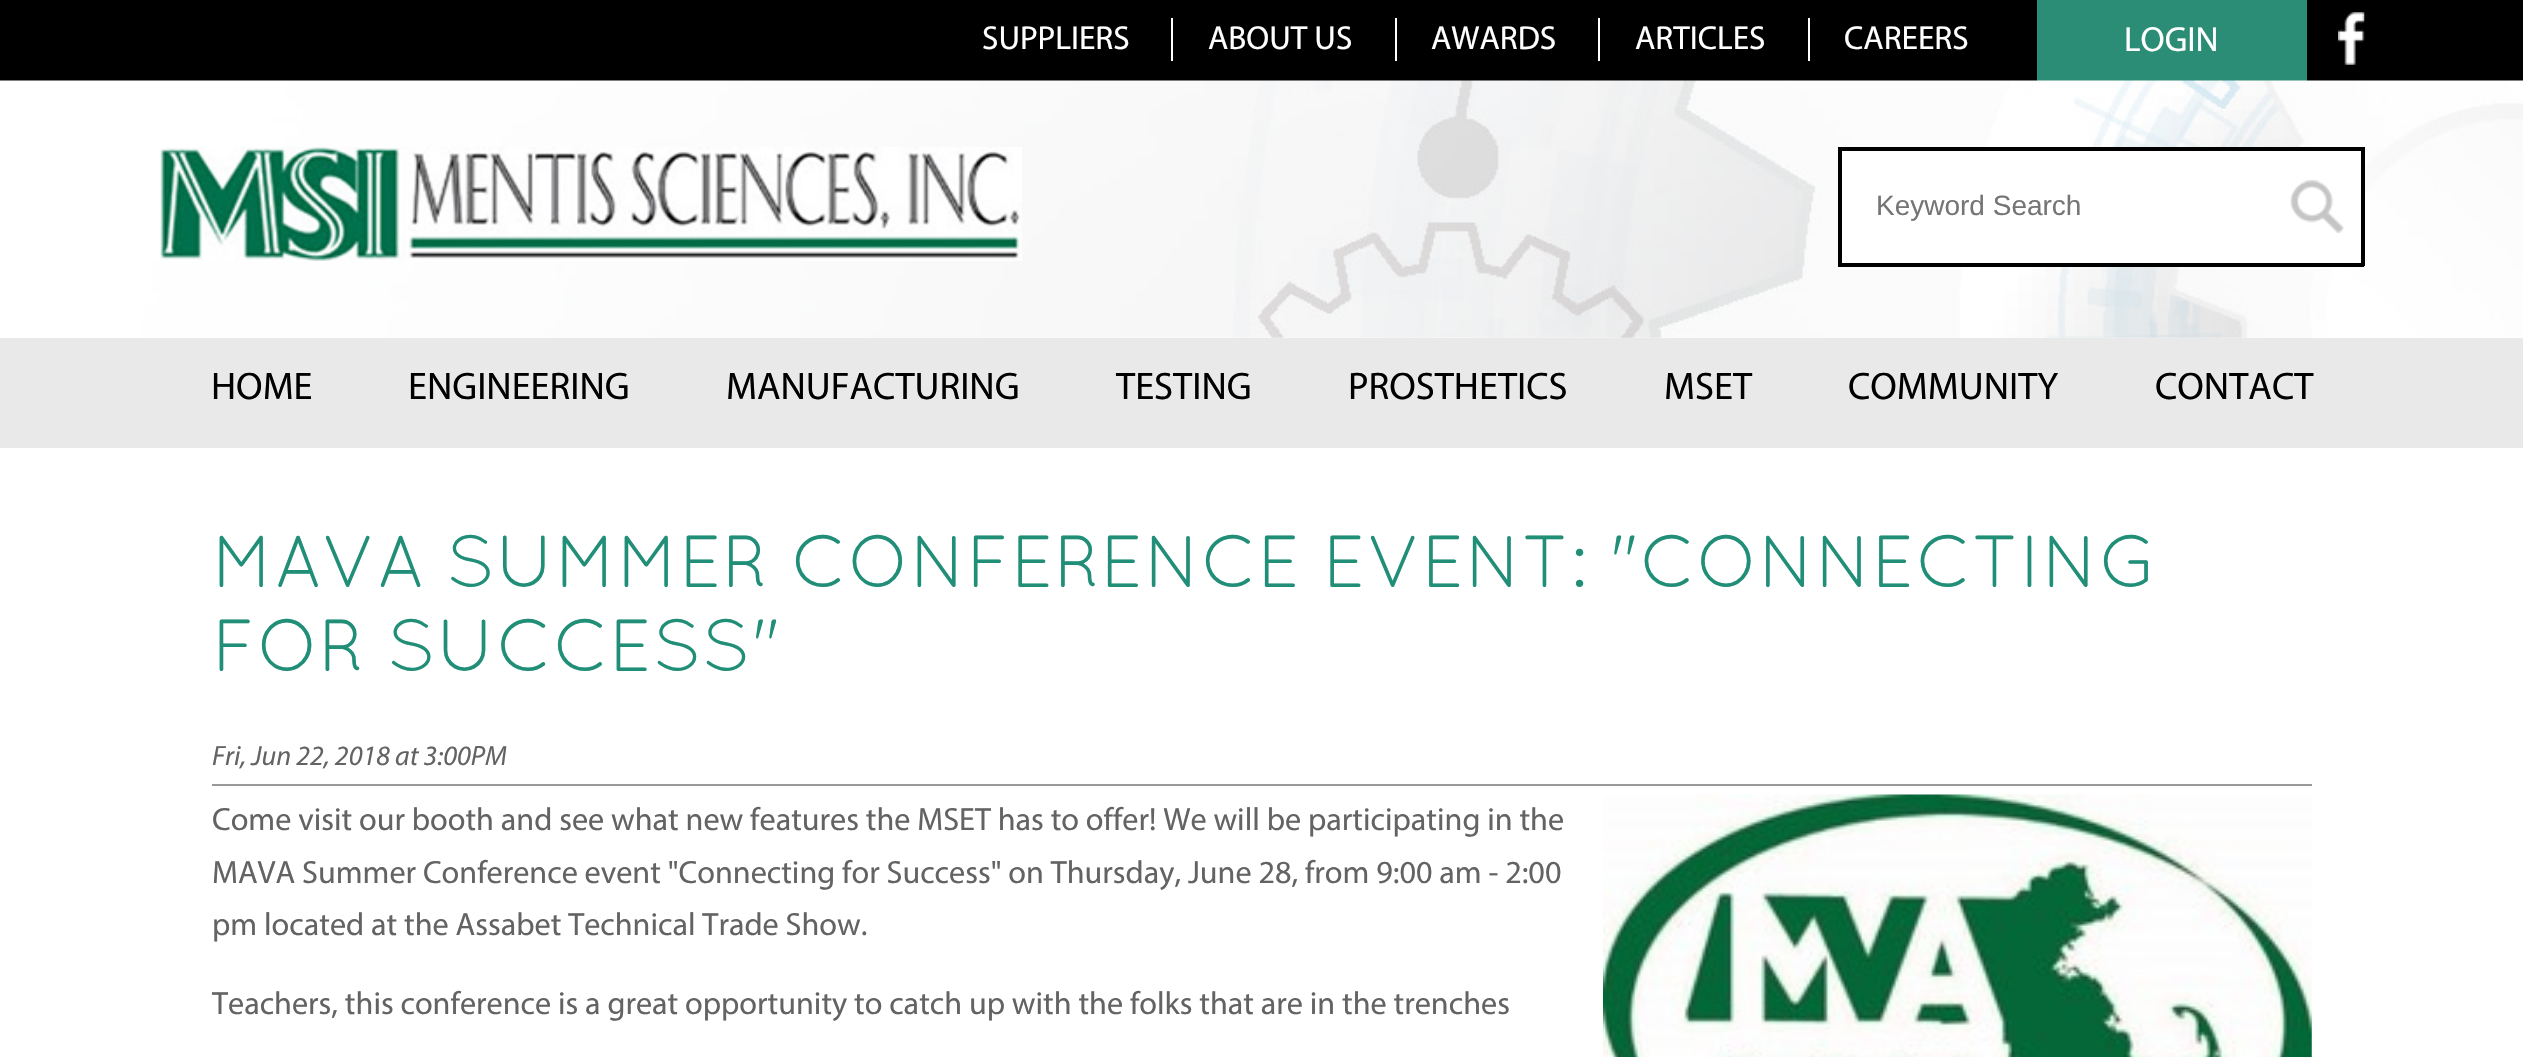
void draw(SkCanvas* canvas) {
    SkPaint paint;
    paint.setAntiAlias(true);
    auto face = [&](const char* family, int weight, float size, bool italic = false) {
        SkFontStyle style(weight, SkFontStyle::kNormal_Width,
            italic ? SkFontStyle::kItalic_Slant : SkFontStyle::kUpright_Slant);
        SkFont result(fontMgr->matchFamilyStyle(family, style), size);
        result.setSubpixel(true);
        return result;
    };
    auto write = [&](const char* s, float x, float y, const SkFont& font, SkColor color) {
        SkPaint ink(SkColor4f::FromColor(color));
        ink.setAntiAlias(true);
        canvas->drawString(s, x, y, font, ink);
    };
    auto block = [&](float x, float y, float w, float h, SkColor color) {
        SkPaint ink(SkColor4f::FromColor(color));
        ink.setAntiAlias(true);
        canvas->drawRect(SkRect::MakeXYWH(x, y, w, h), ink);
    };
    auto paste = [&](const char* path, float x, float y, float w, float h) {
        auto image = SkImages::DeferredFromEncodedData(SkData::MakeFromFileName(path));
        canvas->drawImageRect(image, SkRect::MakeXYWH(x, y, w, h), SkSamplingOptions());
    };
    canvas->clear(SK_ColorWHITE);
    block(0, 0, 2523, 81, SK_ColorBLACK);
    auto kFont1 = face("Myriad", 400, 33.25f);
    write("SUPPLIERS", 982, 49, kFont1, SK_ColorWHITE);
    block(1171, 18, 2, 43, SK_ColorWHITE);
    write("ABOUT US", 1208, 49, kFont1, SK_ColorWHITE);
    block(1395, 18, 2, 43, SK_ColorWHITE);
    write("AWARDS", 1431, 49, kFont1, SK_ColorWHITE);
    block(1598, 18, 2, 43, SK_ColorWHITE);
    write("ARTICLES", 1635, 49, kFont1, SK_ColorWHITE);
    block(1808, 18, 2, 43, SK_ColorWHITE);
    write("CAREERS", 1844, 49, kFont1, SK_ColorWHITE);
    block(2037, 0, 270, 81, SkColorSetRGB(43, 141, 117));
    auto kFont2 = face("Myriad", 400, 35);
    write("LOGIN", 2124, 51, kFont2, SK_ColorWHITE);
    paste("pic1.png", 2338, 12, 27, 53);
    paste("pic2.png", 0, 80, 2523, 258);
    paste("pic3.png", 160, 147, 862, 114);
    block(1842, 151, 519, 112, SK_ColorWHITE);
    block(1838, 147, 526, 4, SK_ColorBLACK);
    block(1838, 263, 435, 4, SK_ColorBLACK);
    block(1838, 147, 4, 119, SK_ColorBLACK);
    auto kFont3 = face("Liberation Sans", 400, 28);
    write("Keyword Search", 1876, 215, kFont3, SkColorSetRGB(117, 117, 117));
    paste("pic4.png", 2290, 180, 54, 53);
    block(2361, 147, 4, 119, SK_ColorBLACK);
    block(2273, 263, 91, 4, SK_ColorBLACK);
    block(0, 338, 2523, 110, SkColorSetRGB(233, 233, 233));
    auto kFont4 = face("Myriad", 400, 38.5f);
    write("HOME", 211, 399, kFont4, SK_ColorBLACK);
    write("ENGINEERING", 408, 399, kFont4, SK_ColorBLACK);
    write("MANUFACTURING", 726, 399, kFont4, SK_ColorBLACK);
    write("TESTING", 1116, 399, kFont4, SK_ColorBLACK);
    write("PROSTHETICS", 1348, 399, kFont4, SK_ColorBLACK);
    write("MSET", 1664, 399, kFont4, SK_ColorBLACK);
    write("COMMUNITY", 1848, 399, kFont4, SK_ColorBLACK);
    write("CONTACT", 2155, 399, kFont4, SK_ColorBLACK);
    auto kFont5 = face("Quicksand", 400, 73.5f);
    write("MAVA SUMMER CONFERENCE EVENT: \"CONNECTING", 212, 587, kFont5, SkColorSetRGB(33, 142, 120));
    write("FOR SUCCESS\"", 212, 671, kFont5, SkColorSetRGB(33, 142, 120));
    auto kFont6 = face("Myriad", 400, 28, true);
    write("Fri, Jun 22, 2018 at 3:00PM", 212, 765, kFont6, SkColorSetRGB(99, 99, 99));
    block(212, 784, 2100, 2, SkColorSetRGB(153, 153, 153));
    auto kFont7 = face("Myriad", 400, 32.2f);
    write("Come visit our booth and see what new features the MSET has to offer! We will be participating in the", 212, 830, kFont7, SkColorSetRGB(99, 99, 99));
    paste("pic5.png", 1603, 794, 709, 263);
    write("MAVA Summer Conference event \"Connecting for Success\" on Thursday, June 28, from 9:00 am - 2:00", 212, 883, kFont7, SkColorSetRGB(99, 99, 99));
    write("pm located at the Assabet Technical Trade Show.", 212, 935, kFont7, SkColorSetRGB(99, 99, 99));
    write("Teachers, this conference is a great opportunity to catch up with the folks that are in the trenches", 212, 1014, kFont7, SkColorSetRGB(99, 99, 99));
}
